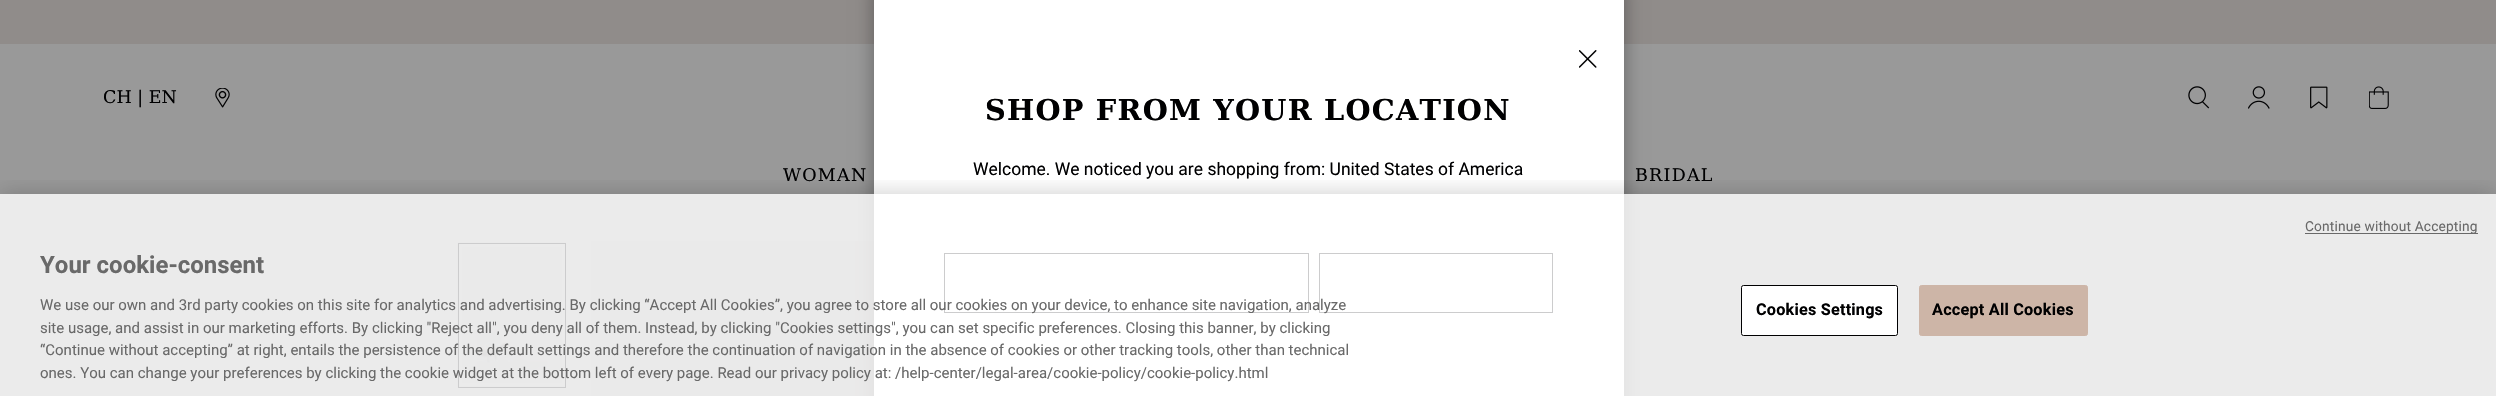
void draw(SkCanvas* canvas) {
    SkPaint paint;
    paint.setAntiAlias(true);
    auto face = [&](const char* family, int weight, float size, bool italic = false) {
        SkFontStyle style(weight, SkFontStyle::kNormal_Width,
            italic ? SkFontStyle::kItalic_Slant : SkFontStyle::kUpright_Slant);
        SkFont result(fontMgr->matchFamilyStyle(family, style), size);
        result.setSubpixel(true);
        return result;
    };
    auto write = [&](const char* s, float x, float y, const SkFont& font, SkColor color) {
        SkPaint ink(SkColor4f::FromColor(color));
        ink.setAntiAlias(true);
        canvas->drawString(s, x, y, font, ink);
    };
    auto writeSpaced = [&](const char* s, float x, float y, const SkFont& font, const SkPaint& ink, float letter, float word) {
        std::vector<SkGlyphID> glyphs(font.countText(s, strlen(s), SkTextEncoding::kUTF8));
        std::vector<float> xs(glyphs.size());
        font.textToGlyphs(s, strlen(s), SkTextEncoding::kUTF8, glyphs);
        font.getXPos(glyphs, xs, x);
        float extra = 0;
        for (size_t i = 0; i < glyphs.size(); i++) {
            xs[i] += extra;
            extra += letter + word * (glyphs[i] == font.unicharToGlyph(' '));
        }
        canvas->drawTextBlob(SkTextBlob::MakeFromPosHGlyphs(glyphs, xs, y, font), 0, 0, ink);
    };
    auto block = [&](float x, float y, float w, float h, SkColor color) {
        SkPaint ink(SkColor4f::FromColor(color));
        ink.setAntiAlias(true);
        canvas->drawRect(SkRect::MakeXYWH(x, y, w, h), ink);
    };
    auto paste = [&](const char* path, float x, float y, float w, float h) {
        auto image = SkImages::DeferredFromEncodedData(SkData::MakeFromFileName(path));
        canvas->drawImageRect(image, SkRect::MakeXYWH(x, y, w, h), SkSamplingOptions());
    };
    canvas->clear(SkColorSetRGB(153, 153, 153));
    block(0, 0, 2496, 44, SkColorSetRGB(144, 140, 138));
    auto kFont1 = face("DejaVu Serif", 400, 17.5f);
    write("CH | EN", 103, 103, kFont1, SkColorSetRGB(0, 0, 1));
    paste("pic1.png", 215, 88, 15, 20);
    paste("pic2.png", 2188, 86, 22, 23);
    paste("pic3.png", 2248, 86, 22, 23);
    paste("pic4.png", 2310, 86, 18, 23);
    paste("pic5.png", 2369, 86, 20, 23);
    paint.setColor(SkColorSetRGB(0, 0, 1));
    writeSpaced("WOMAN", 783, 181, kFont1, paint, 1.25f, 0);
    writeSpaced("BRIDAL", 1635, 181, kFont1, paint, 1.25f, 0);
    block(591, 241, 283, 155, SkColorSetRGB(149, 147, 147));
    paint.setColor(SkColorSetARGB(89, 0, 0, 0));
    paint.setMaskFilter(SkMaskFilter::MakeBlur(kNormal_SkBlurStyle, 9.5f));
    canvas->drawRect(SkRect::MakeXYWH(874, -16, 750, 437), paint);
    paint.setMaskFilter(nullptr);
    block(874, 0, 750, 396, SK_ColorWHITE);
    paste("pic6.png", 1579, 50, 18, 18);
    auto kFont2 = face("DejaVu Serif", 700, 28.75f);
    paint.setColor(SkColorSetRGB(0, 0, 1));
    writeSpaced("SHOP FROM YOUR LOCATION", 985, 120, kFont2, paint, 1.25f, 0);
    auto kFont3 = face("Roboto", 400, 17.5f);
    write("Welcome. We noticed you are shopping from: United States of America", 973, 175, kFont3, SkColorSetRGB(0, 0, 1));
    paint.setStyle(SkPaint::kStroke_Style);
    paint.setStrokeWidth(1);
    canvas->drawRect(SkRect::MakeXYWH(944.5f, 253.5f, 364, 59), paint);
    canvas->drawRect(SkRect::MakeXYWH(1319.5f, 253.5f, 233, 59), paint);
    paste("pic7.png", 457, 242, 109, 145);
    paint.setStrokeWidth(3);
    paint.setColor(SkColorSetRGB(153, 153, 153));
    canvas->drawRect(SkRect::MakeXYWH(460.5f, 245.5f, 103, 139), paint);
    paint.setStrokeWidth(1);
    paint.setColor(SkColorSetRGB(0, 0, 1));
    canvas->drawRect(SkRect::MakeXYWH(458.5f, 243.5f, 107, 144), paint);
    canvas->save();
    canvas->clipRect(SkRect::MakeXYWH(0, 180, 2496, 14));
    paint.setStyle(SkPaint::kFill_Style);
    paint.setColor(SkColorSetARGB(51, 0, 0, 0));
    paint.setMaskFilter(SkMaskFilter::MakeBlur(kNormal_SkBlurStyle, 11));
    canvas->drawRect(SkRect::MakeXYWH(0, 194, 2496, 202), paint);
    paint.setMaskFilter(nullptr);
    canvas->restore();
    block(0, 194, 2496, 202, SkColorSetARGB(204, 255, 255, 255));
    block(2305, 233, 173, 1, SkColorSetRGB(105, 105, 105));
    auto kFont4 = face("Roboto", 400, 13.75f);
    paint.setColor(SkColorSetRGB(105, 105, 105));
    writeSpaced("Continue without Accepting", 2305, 231, kFont4, paint, 0.15f, 0);
    auto kFont5 = face("Roboto", 700, 24);
    write("Your cookie-consent", 40, 273, kFont5, SkColorSetRGB(105, 105, 105));
    auto kFont6 = face("Roboto", 400, 15);
    write("We use our own and 3rd party cookies on this site for analytics and advertising. By clicking “Accept All Cookies”, you agree to store all our cookies on your device, to enhance site navigation, analyze", 40, 310, kFont6, SkColorSetRGB(105, 105, 105));
    write("site usage, and assist in our marketing efforts. By clicking \"Reject all\", you deny all of them. Instead, by clicking \"Cookies settings\", you can set specific preferences. Closing this banner, by clicking", 40, 333, kFont6, SkColorSetRGB(105, 105, 105));
    write("“Continue without accepting” at right, entails the persistence of the default settings and therefore the continuation of navigation in the absence of cookies or other tracking tools, other than technical", 40, 355, kFont6, SkColorSetRGB(105, 105, 105));
    write("ones. You can change your preferences by clicking the cookie widget at the bottom left of every page. Read our privacy policy at: /help-center/legal-area/cookie-policy/cookie-policy.html", 40, 378, kFont6, SkColorSetRGB(105, 105, 105));
    paint.setColor(SK_ColorWHITE);
    canvas->drawRoundRect(SkRect::MakeXYWH(1741.5f, 285.5f, 156, 50), 2, 2, paint);
    paint.setStyle(SkPaint::kStroke_Style);
    paint.setColor(SkColorSetRGB(0, 0, 1));
    canvas->drawRoundRect(SkRect::MakeXYWH(1741.5f, 285.5f, 156, 50), 2, 2, paint);
    auto kFont7 = face("Roboto", 700, 16.25f);
    paint.setStyle(SkPaint::kFill_Style);
    writeSpaced("Cookies Settings", 1756, 315, kFont7, paint, 0.2f, 0);
    paint.setColor(SkColorSetRGB(205, 181, 167));
    canvas->drawRoundRect(SkRect::MakeXYWH(1919.5f, 285.5f, 168, 50), 2, 2, paint);
    paint.setStyle(SkPaint::kStroke_Style);
    canvas->drawRoundRect(SkRect::MakeXYWH(1919.5f, 285.5f, 168, 50), 2, 2, paint);
    paint.setStyle(SkPaint::kFill_Style);
    paint.setColor(SkColorSetRGB(0, 0, 1));
    writeSpaced("Accept All Cookies", 1932, 315, kFont7, paint, 0.2f, 0);
}
